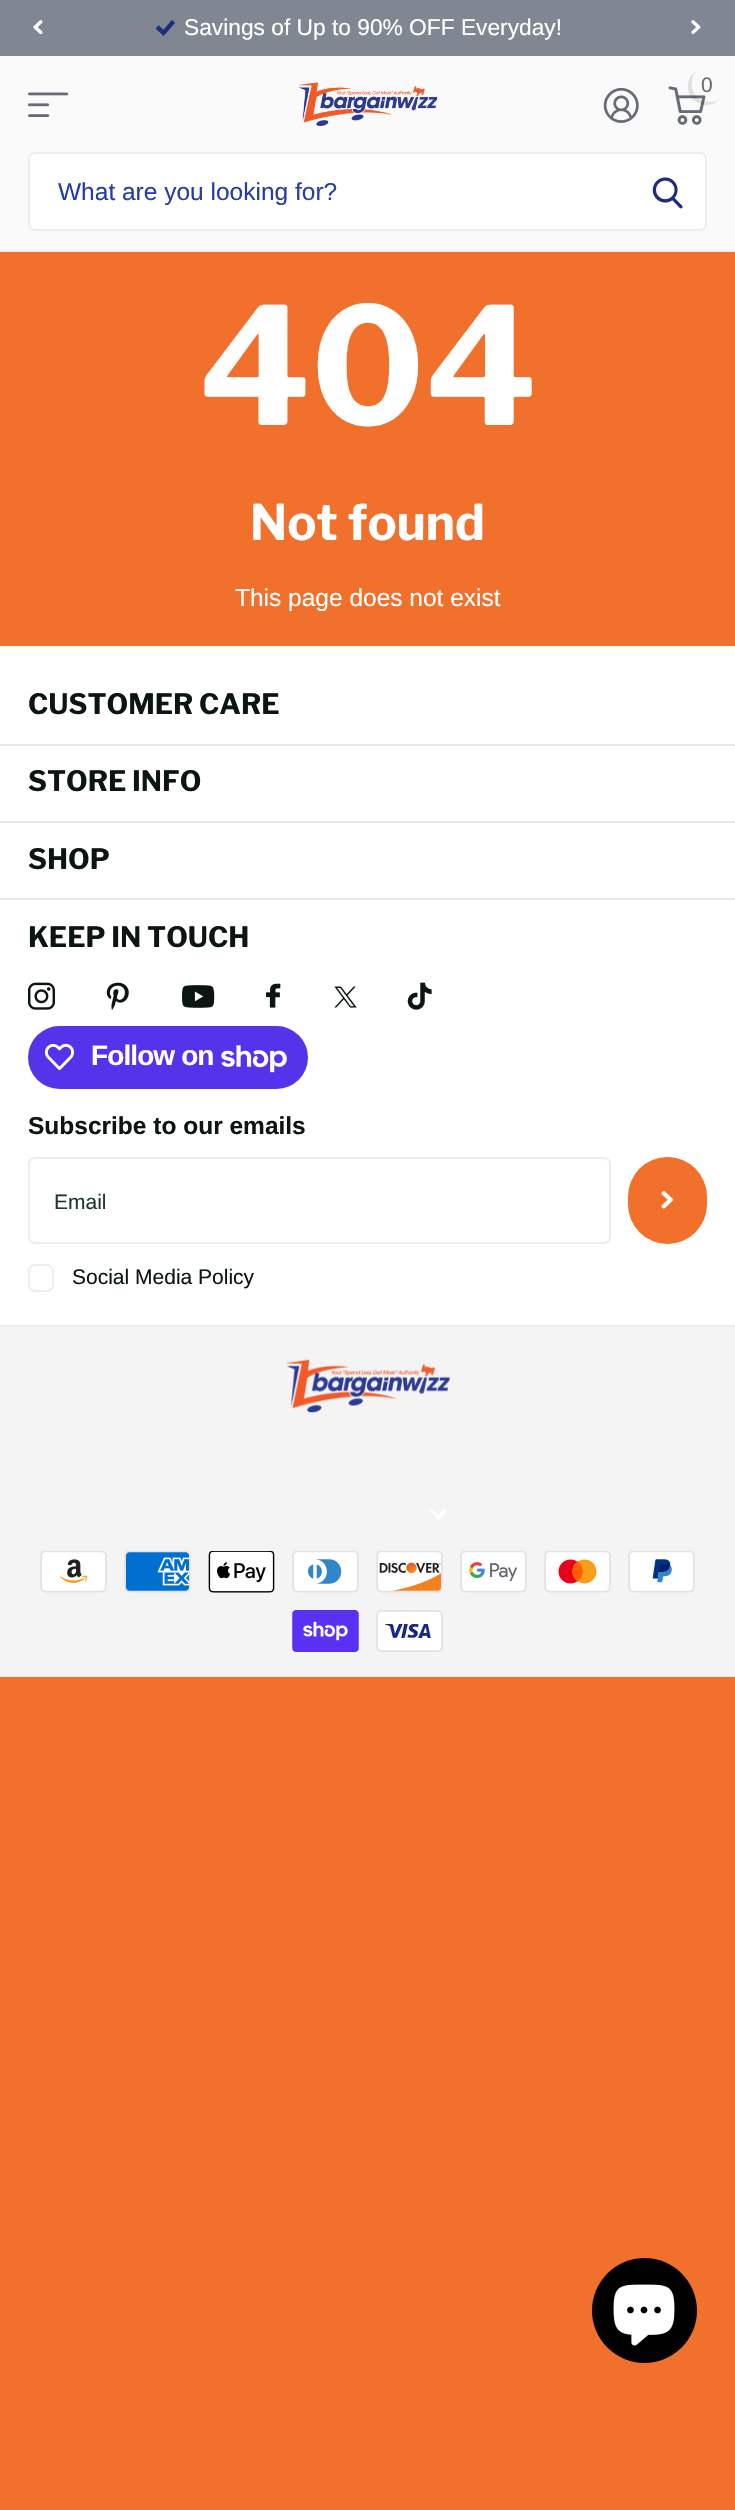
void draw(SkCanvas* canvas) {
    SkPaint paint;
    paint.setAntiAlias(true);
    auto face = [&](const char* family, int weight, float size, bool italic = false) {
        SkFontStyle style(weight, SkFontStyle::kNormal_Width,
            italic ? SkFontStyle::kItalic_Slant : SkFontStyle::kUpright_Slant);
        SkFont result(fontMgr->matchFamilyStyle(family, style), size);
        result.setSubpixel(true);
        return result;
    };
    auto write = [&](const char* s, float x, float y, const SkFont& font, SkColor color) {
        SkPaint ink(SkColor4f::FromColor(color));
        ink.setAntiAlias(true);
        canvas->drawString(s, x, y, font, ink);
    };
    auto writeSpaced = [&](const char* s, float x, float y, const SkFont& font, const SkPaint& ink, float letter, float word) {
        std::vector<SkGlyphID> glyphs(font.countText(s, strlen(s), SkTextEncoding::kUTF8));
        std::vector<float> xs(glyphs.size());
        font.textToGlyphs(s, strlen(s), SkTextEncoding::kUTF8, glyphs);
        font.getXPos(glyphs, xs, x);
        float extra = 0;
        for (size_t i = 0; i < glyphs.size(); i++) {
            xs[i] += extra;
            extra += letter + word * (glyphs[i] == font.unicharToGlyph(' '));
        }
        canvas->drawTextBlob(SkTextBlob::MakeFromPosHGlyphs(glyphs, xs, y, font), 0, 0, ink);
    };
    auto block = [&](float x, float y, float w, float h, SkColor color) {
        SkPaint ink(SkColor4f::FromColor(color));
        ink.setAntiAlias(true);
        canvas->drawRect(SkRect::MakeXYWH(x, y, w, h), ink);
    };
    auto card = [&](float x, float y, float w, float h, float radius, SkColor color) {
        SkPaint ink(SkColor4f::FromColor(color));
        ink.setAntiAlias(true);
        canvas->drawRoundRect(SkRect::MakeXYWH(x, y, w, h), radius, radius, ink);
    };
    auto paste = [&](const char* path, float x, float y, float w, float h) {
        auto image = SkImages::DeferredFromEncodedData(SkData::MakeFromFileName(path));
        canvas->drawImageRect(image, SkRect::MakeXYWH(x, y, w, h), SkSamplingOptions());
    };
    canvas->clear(SkColorSetRGB(250, 250, 250));
    block(0, 0, 735, 56, SkColorSetRGB(128, 135, 147));
    paste("pic1.png", 33, 20, 10, 15);
    paste("pic2.png", 156, 20, 19, 16);
    auto kFont1 = face("Arimo", 400, 22.75f);
    write("Savings of Up to 90% OFF Everyday!", 184, 35, kFont1, SK_ColorWHITE);
    paste("pic3.png", 691, 20, 10, 15);
    paste("pic4.png", 28, 92, 41, 25);
    paste("pic5.png", 298, 82, 140, 44);
    paste("pic6.png", 668, 86, 38, 39);
    paint.setColor(SkColorSetARGB(26, 0, 0, 0));
    canvas->drawPath(SkPathBuilder().moveTo(719.5f, 99.5f).cubicTo(717, 101, 714, 102, 710, 102).cubicTo(692, 102, 687.5f, 81.5f, 696, 71).cubicTo(686.5f, 77.5f, 685, 91.5f, 693.5f, 99.5f).cubicTo(700.5f, 107, 712.5f, 106.5f, 719.5f, 99.5f).close().detach(), paint);
    auto kFont2 = face("Arimo", 400, 21);
    write("0", 701, 92, kFont2, SkColorSetRGB(103, 107, 115));
    paste("pic7.png", 603, 87, 36, 36);
    paint.setColor(SK_ColorWHITE);
    canvas->drawRoundRect(SkRect::MakeXYWH(29, 153, 677, 77), 6, 6, paint);
    paint.setStyle(SkPaint::kStroke_Style);
    paint.setStrokeWidth(2);
    paint.setColor(SkColorSetRGB(236, 237, 236));
    canvas->drawRoundRect(SkRect::MakeXYWH(29, 153, 677, 77), 6, 6, paint);
    auto kFont3 = face("Arimo", 400, 24.5f);
    write("What are you looking for?", 58, 200, kFont3, SkColorSetRGB(37, 62, 165));
    paste("pic8.png", 652, 177, 31, 32);
    block(0, 250, 735, 2, SkColorSetRGB(236, 237, 236));
    block(0, 252, 735, 2258, SkColorSetRGB(240, 112, 44));
    auto kFont4 = face("Libre Franklin", 700, 162);
    write("404", 199, 425, kFont4, SK_ColorWHITE);
    auto kFont5 = face("Libre Franklin", 700, 49);
    write("Not found", 250, 540, kFont5, SK_ColorWHITE);
    write("This page does not exist", 235, 606, kFont3, SK_ColorWHITE);
    block(0, 646, 735, 679, SK_ColorWHITE);
    auto kFont6 = face("Libre Franklin", 700, 28);
    write("CUSTOMER CARE", 28, 714, kFont6, SkColorSetRGB(11, 22, 19));
    block(0, 744, 735, 2, SkColorSetRGB(231, 232, 231));
    write("STORE INFO", 28, 791, kFont6, SkColorSetRGB(11, 22, 19));
    block(0, 821, 735, 2, SkColorSetRGB(231, 232, 231));
    write("SHOP", 28, 869, kFont6, SkColorSetRGB(11, 22, 19));
    block(0, 898, 735, 2, SkColorSetRGB(231, 232, 231));
    write("KEEP IN TOUCH", 28, 947, kFont6, SkColorSetRGB(11, 22, 19));
    paste("pic9.png", 28, 982, 27, 28);
    paste("pic10.png", 106, 982, 23, 28);
    paste("pic11.png", 182, 985, 33, 23);
    paste("pic12.png", 266, 983, 15, 25);
    paste("pic13.png", 334, 986, 23, 22);
    paste("pic14.png", 407, 982, 25, 28);
    card(28, 1026, 280, 63, 31.5f, SkColorSetRGB(84, 51, 235));
    paste("pic15.png", 44, 1043, 31, 28);
    auto kFont7 = face("Liberation Sans", 700, 28);
    paint.setStyle(SkPaint::kFill_Style);
    paint.setColor(SK_ColorWHITE);
    writeSpaced("Follow on", 91, 1065, kFont7, paint, -0.9f, 0);
    paste("pic16.png", 221, 1045, 66, 28);
    auto kFont8 = face("Arimo", 700, 24.5f);
    write("Subscribe to our emails", 28, 1134, kFont8, SkColorSetRGB(11, 22, 19));
    paint.setStyle(SkPaint::kStroke_Style);
    paint.setColor(SkColorSetRGB(236, 237, 236));
    canvas->drawRoundRect(SkRect::MakeXYWH(29, 1158, 581, 85), 6, 6, paint);
    write("Email", 54, 1209, kFont2, SkColorSetRGB(28, 56, 48));
    card(628, 1157, 79, 87, 39.5f, SkColorSetRGB(240, 112, 44));
    paste("pic17.png", 661, 1191, 13, 18);
    canvas->drawRoundRect(SkRect::MakeXYWH(29, 1265, 24, 26), 6, 6, paint);
    write("Social Media Policy", 72, 1284, kFont2, SkColorSetRGB(11, 22, 19));
    block(0, 1327, 735, 350, SkColorSetRGB(244, 244, 244));
    block(0, 1325, 735, 2, SkColorSetRGB(236, 237, 236));
    paste("pic18.png", 285, 1359, 165, 54);
    paste("pic19.png", 430, 1509, 16, 11);
    paste("pic20.png", 40, 1551, 67, 42);
    paste("pic21.png", 124, 1551, 67, 42);
    paste("pic22.png", 208, 1551, 67, 42);
    paste("pic23.png", 292, 1551, 67, 42);
    paste("pic24.png", 376, 1551, 67, 42);
    paste("pic25.png", 460, 1551, 67, 42);
    paste("pic26.png", 544, 1551, 67, 42);
    paste("pic27.png", 628, 1551, 67, 42);
    paste("pic28.png", 292, 1610, 67, 42);
    paste("pic29.png", 376, 1610, 67, 42);
    paint.setStyle(SkPaint::kFill_Style);
    paint.setColor(SK_ColorBLACK);
    canvas->drawCircle(644.5f, 2310.5f, 52.5f, paint);
    paste("pic30.png", 613, 2284, 62, 62);
}
